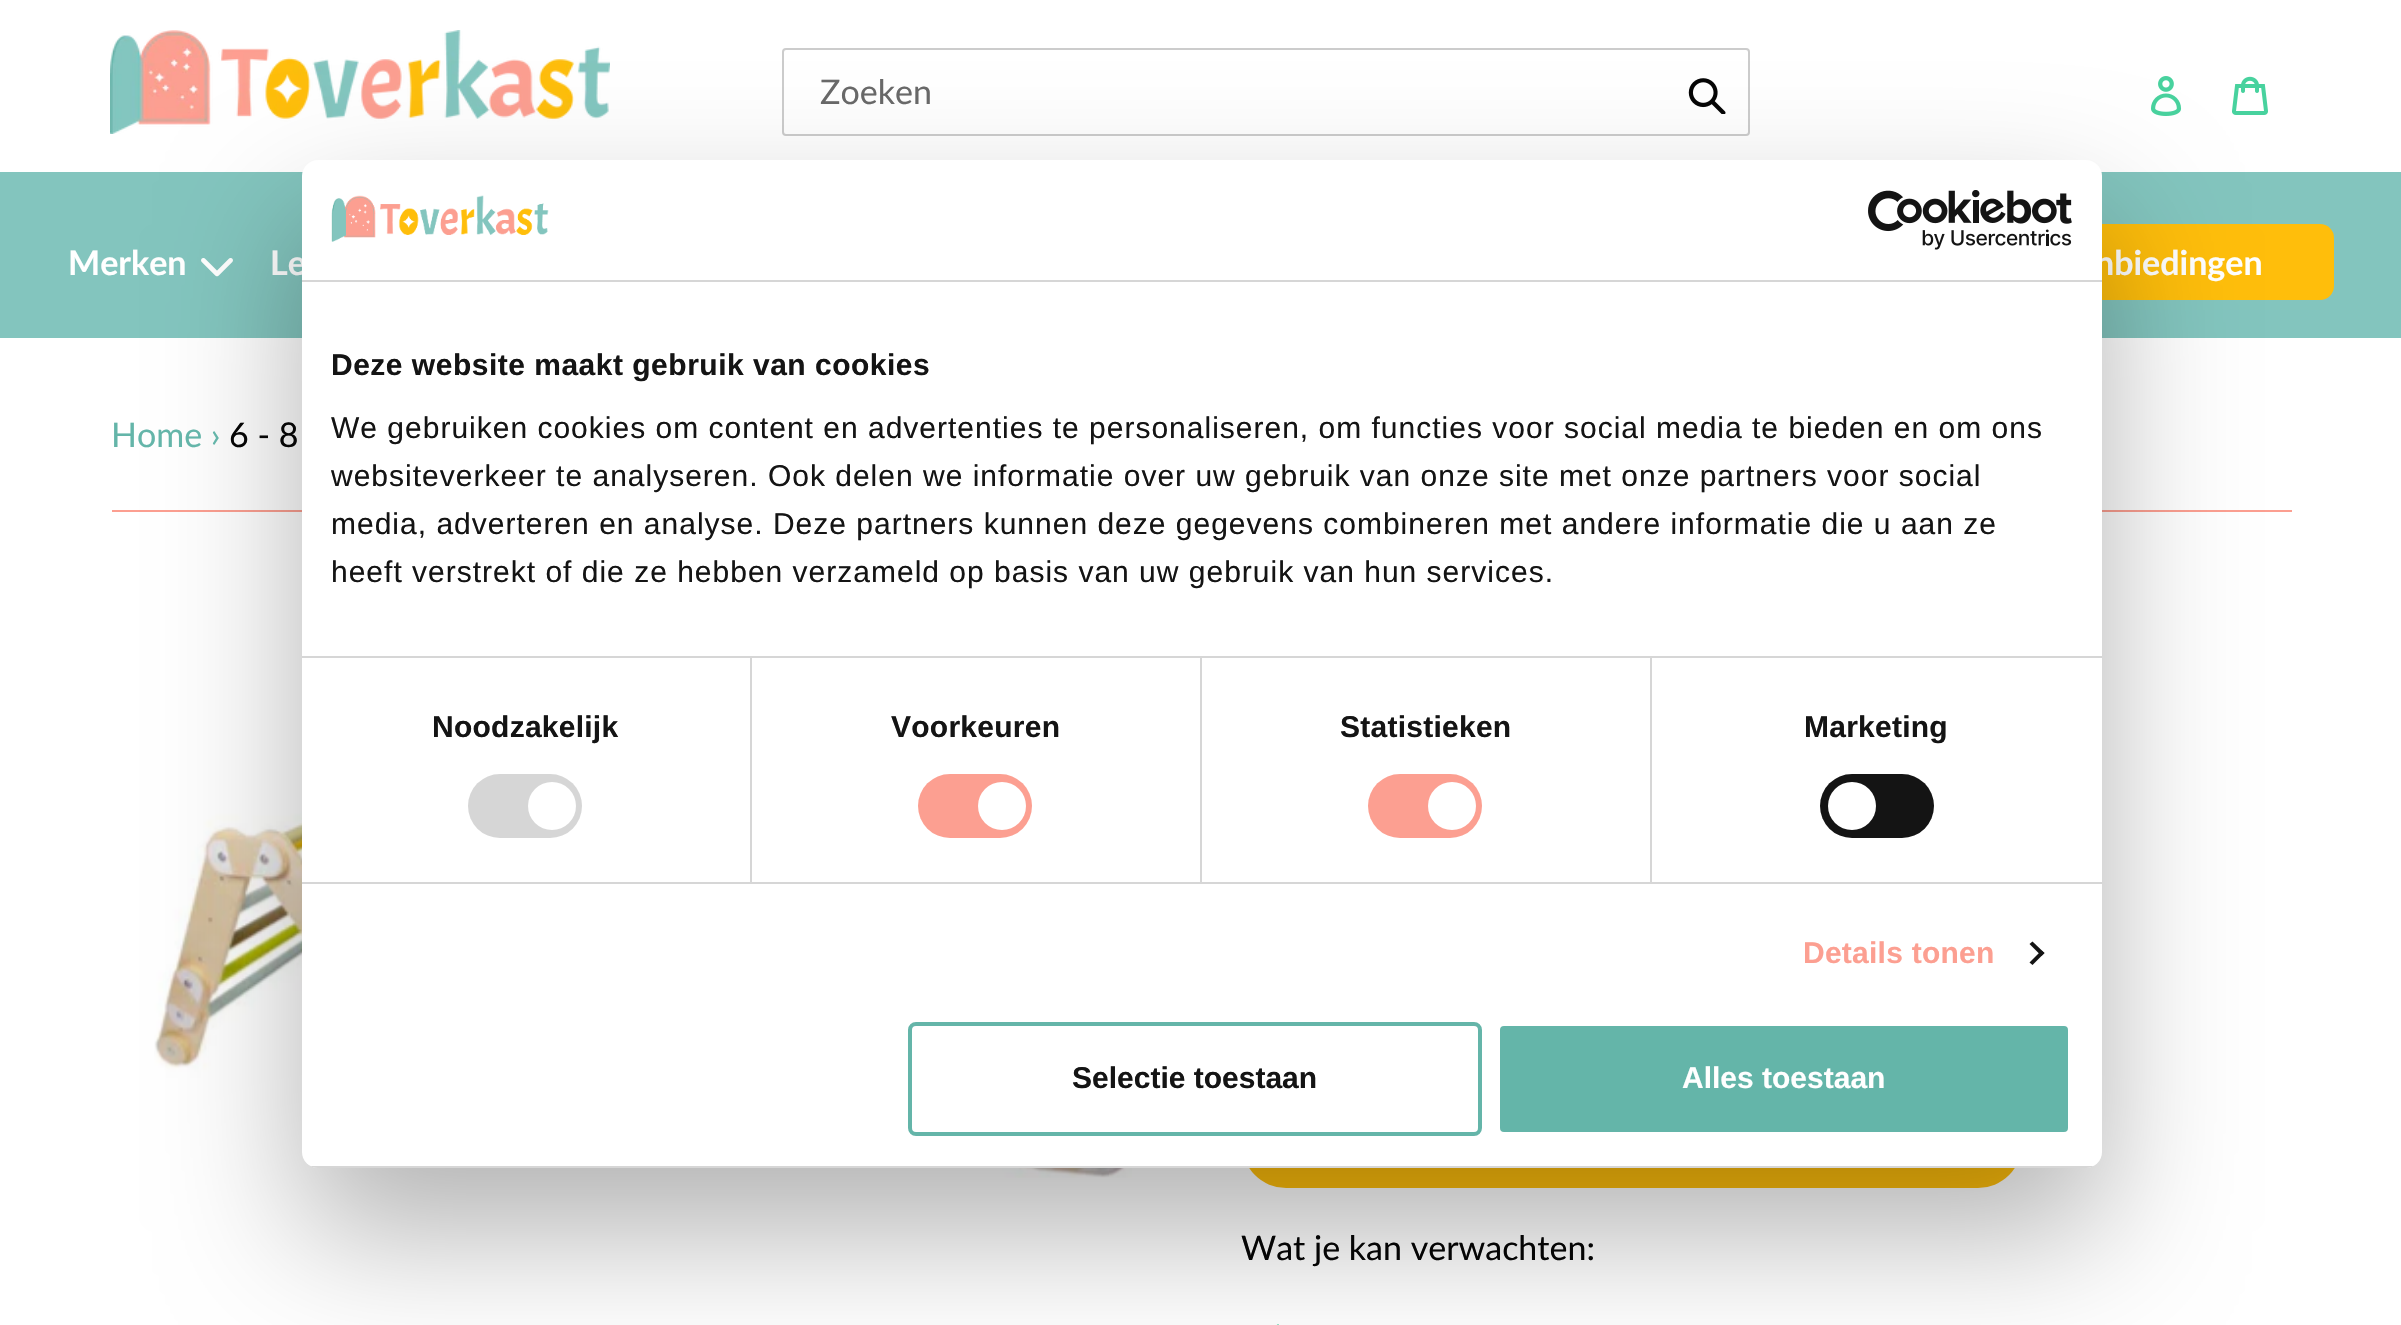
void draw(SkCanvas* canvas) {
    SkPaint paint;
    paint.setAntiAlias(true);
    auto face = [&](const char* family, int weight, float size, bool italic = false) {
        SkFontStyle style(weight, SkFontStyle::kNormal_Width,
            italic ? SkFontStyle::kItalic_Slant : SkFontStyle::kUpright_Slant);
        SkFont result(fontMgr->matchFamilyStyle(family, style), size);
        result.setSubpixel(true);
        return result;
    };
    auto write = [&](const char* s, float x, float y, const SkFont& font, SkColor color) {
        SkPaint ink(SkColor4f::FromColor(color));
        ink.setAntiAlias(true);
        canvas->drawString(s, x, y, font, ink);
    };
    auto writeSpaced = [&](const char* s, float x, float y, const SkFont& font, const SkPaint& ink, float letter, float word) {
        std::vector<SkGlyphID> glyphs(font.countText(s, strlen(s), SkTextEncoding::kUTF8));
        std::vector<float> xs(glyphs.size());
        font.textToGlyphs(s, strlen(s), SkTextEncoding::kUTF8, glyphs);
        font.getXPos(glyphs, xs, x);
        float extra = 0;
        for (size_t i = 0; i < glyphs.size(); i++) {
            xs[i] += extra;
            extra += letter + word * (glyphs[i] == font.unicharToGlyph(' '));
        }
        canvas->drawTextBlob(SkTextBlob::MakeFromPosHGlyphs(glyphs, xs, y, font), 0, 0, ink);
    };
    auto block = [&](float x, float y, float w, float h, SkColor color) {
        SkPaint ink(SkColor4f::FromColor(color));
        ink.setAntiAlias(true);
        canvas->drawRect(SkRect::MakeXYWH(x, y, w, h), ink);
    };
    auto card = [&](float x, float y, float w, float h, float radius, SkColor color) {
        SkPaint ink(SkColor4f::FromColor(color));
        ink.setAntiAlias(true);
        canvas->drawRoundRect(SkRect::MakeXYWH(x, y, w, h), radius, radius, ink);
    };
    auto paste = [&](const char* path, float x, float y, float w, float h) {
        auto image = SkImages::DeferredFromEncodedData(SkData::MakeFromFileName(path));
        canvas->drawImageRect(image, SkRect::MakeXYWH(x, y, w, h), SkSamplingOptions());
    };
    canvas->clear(SK_ColorWHITE);
    paste("pic1.png", 110, 30, 500, 104);
    paint.setStyle(SkPaint::kStroke_Style);
    paint.setStrokeWidth(2);
    paint.setColor(SkColorSetRGB(204, 204, 204));
    canvas->drawRoundRect(SkRect::MakeXYWH(783, 49, 966, 86), 3, 3, paint);
    auto kFont1 = face("Lato", 400, 34);
    write("Zoeken", 820, 104, kFont1, SkColorSetRGB(105, 105, 105));
    paste("pic2.png", 1688, 78, 38, 36);
    paste("pic3.png", 2151, 76, 31, 40);
    paste("pic4.png", 2232, 76, 36, 39);
    block(0, 172, 2401, 166, SkColorSetRGB(131, 197, 190));
    auto kFont2 = face("Lato", 700, 34);
    write("Merken", 68, 275, kFont2, SK_ColorWHITE);
    paste("pic5.png", 201, 258, 32, 19);
    write("Le", 270, 275, kFont2, SK_ColorWHITE);
    card(1982, 224, 352, 76, 14, SkColorSetRGB(255, 190, 11));
    write("nbiedingen", 2095, 275, kFont2, SK_ColorWHITE);
    block(112, 510, 2180, 2, SkColorSetRGB(252, 159, 145));
    paste("pic8.png", 154, 769, 978, 409);
    card(1242, 1100, 780, 88, 44, SkColorSetRGB(255, 190, 11));
    paste("pic9.png", 1276, 1324, 3, 1);
    paint.setStyle(SkPaint::kFill_Style);
    paint.setColor(SkColorSetARGB(77, 0, 0, 0));
    paint.setMaskFilter(SkMaskFilter::MakeBlur(kNormal_SkBlurStyle, 68));
    canvas->drawRoundRect(SkRect::MakeXYWH(302, 224, 1800, 1008), 16, 16, paint);
    paint.setMaskFilter(nullptr);
    card(302, 160, 1800, 1008, 16, SK_ColorWHITE);
    block(302, 280, 1800, 2, SkColorSetRGB(214, 214, 214));
    paste("pic6.png", 331, 195, 218, 47);
    paste("pic7.png", 1868, 190, 204, 60);
    block(302, 656, 1800, 2, SkColorSetRGB(214, 214, 214));
    auto kFont3 = face("Liberation Sans", 700, 30);
    paint.setColor(SkColorSetRGB(20, 20, 20));
    writeSpaced("Deze website maakt gebruik van cookies", 331, 375, kFont3, paint, 0.5f, 0);
    auto kFont4 = face("Liberation Sans", 400, 30);
    writeSpaced("We gebruiken cookies om content en advertenties te personaliseren, om functies voor social media te bieden en om ons", 331, 438, kFont4, paint, 1, 0);
    writeSpaced("websiteverkeer te analyseren. Ook delen we informatie over uw gebruik van onze site met onze partners voor social", 331, 486, kFont4, paint, 1, 0);
    writeSpaced("media, adverteren en analyse. Deze partners kunnen deze gegevens combineren met andere informatie die u aan ze", 331, 534, kFont4, paint, 1, 0);
    writeSpaced("heeft verstrekt of die ze hebben verzameld op basis van uw gebruik van hun services.", 331, 582, kFont4, paint, 1, 0);
    block(302, 882, 1800, 2, SkColorSetRGB(214, 214, 214));
    block(750, 658, 2, 224, SkColorSetRGB(214, 214, 214));
    writeSpaced("Noodzakelijk", 432, 737, kFont3, paint, 0.25f, 0);
    card(468, 774, 114, 64, 32, SkColorSetRGB(214, 214, 214));
    paint.setColor(SK_ColorWHITE);
    canvas->drawCircle(552, 806, 24, paint);
    block(1200, 658, 2, 224, SkColorSetRGB(214, 214, 214));
    paint.setColor(SkColorSetRGB(20, 20, 20));
    writeSpaced("Voorkeuren", 891, 737, kFont3, paint, 0.25f, 0);
    card(918, 774, 114, 64, 32, SkColorSetRGB(252, 159, 145));
    paint.setColor(SK_ColorWHITE);
    canvas->drawCircle(1002, 806, 24, paint);
    block(1650, 658, 2, 224, SkColorSetRGB(214, 214, 214));
    paint.setColor(SkColorSetRGB(20, 20, 20));
    writeSpaced("Statistieken", 1340, 737, kFont3, paint, 0.25f, 0);
    card(1368, 774, 114, 64, 32, SkColorSetRGB(252, 159, 145));
    paint.setColor(SK_ColorWHITE);
    canvas->drawCircle(1452, 806, 24, paint);
    paint.setColor(SkColorSetRGB(20, 20, 20));
    writeSpaced("Marketing", 1804, 737, kFont3, paint, 0.25f, 0);
    card(1820, 774, 114, 64, 32, SkColorSetRGB(20, 20, 20));
    paint.setColor(SK_ColorWHITE);
    canvas->drawCircle(1852, 806, 24, paint);
    paint.setColor(SkColorSetRGB(252, 159, 145));
    writeSpaced("Details tonen", 1803, 963, kFont3, paint, 0.25f, 0);
    paint.setColor(SkColorSetRGB(20, 20, 20));
    canvas->drawPath(SkPathBuilder().moveTo(2032.5f, 941.5f).lineTo(2044.5f, 953).lineTo(2041.5f, 956).lineTo(2029.5f, 944).close().detach(), paint);
    canvas->drawPath(SkPathBuilder().moveTo(2041.5f, 950.5f).lineTo(2044.5f, 953).lineTo(2032.5f, 965).lineTo(2029.5f, 962.5f).close().detach(), paint);
    canvas->save();
    canvas->clipPath(SkPathBuilder().moveTo(318, 160).lineTo(2086, 160).cubicTo(2095, 160, 2102, 167, 2102, 176).lineTo(2102, 1152).cubicTo(2102, 1161, 2095, 1168, 2086, 1168).lineTo(318, 1168).cubicTo(309, 1168, 302, 1161, 302, 1152).lineTo(302, 176).cubicTo(302, 167, 309, 160, 318, 160).close().detach(), true);
    block(302, 1166, 1800, 2, SkColorSetRGB(214, 214, 214));
    canvas->restore();
    paint.setStyle(SkPaint::kStroke_Style);
    paint.setStrokeWidth(4);
    paint.setColor(SkColorSetRGB(100, 181, 169));
    canvas->drawRoundRect(SkRect::MakeXYWH(910, 1024, 570, 110), 6, 6, paint);
    write("Selectie toestaan", 1072, 1088, kFont3, SkColorSetRGB(20, 20, 20));
    paint.setStyle(SkPaint::kFill_Style);
    canvas->drawRoundRect(SkRect::MakeXYWH(1498, 1024, 572, 110), 6, 6, paint);
    paint.setStyle(SkPaint::kStroke_Style);
    paint.setColor(SK_ColorWHITE);
    canvas->drawRoundRect(SkRect::MakeXYWH(1498, 1024, 572, 110), 6, 6, paint);
    write("Alles toestaan", 1682, 1088, kFont3, SK_ColorWHITE);
    write("Home ›", 111, 447, kFont1, SkColorSetRGB(100, 181, 169));
    write("6 - 8", 229, 447, kFont1, SkColorSetRGB(5, 5, 5));
    write("Wat je kan verwachten:", 1241, 1260, kFont1, SkColorSetRGB(5, 5, 5));
}
